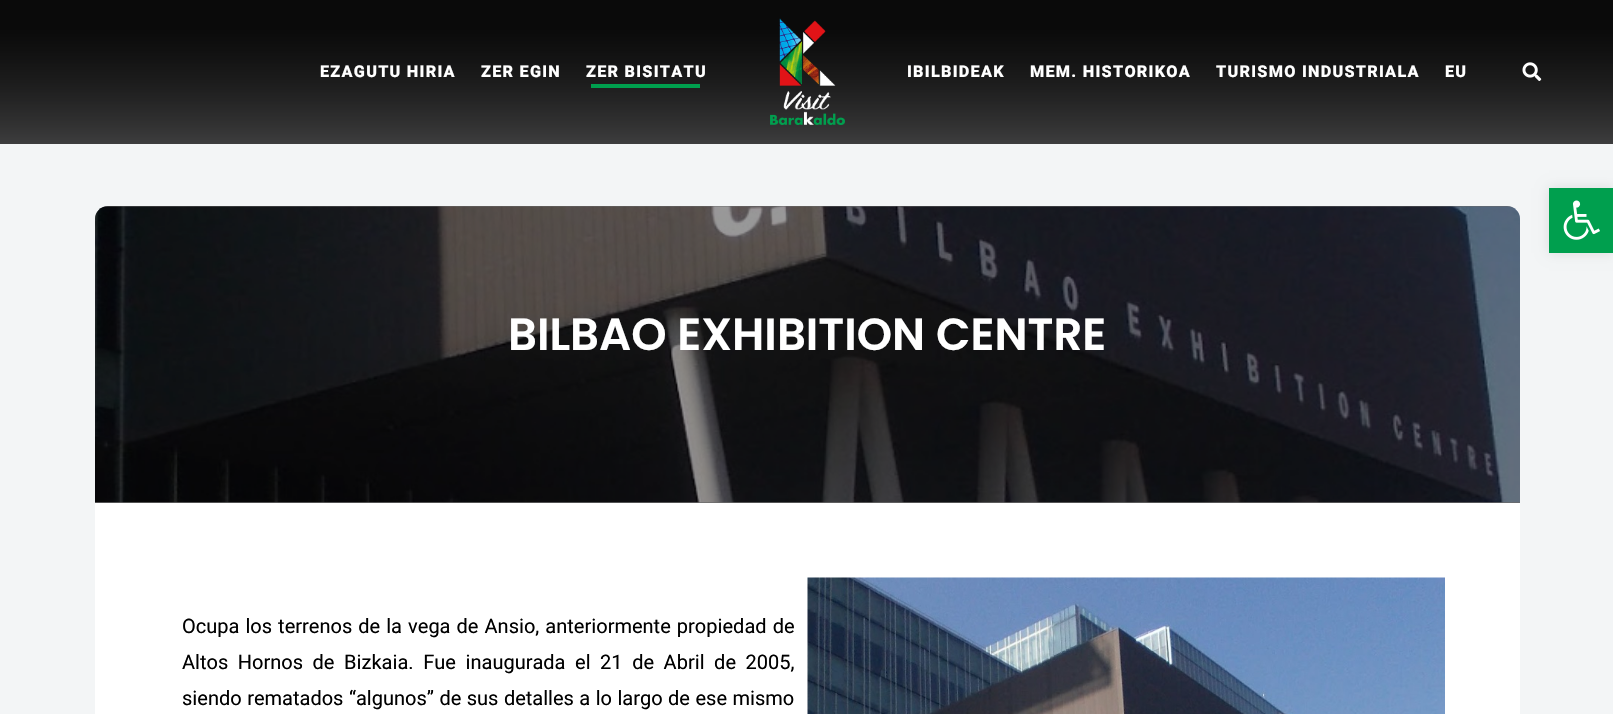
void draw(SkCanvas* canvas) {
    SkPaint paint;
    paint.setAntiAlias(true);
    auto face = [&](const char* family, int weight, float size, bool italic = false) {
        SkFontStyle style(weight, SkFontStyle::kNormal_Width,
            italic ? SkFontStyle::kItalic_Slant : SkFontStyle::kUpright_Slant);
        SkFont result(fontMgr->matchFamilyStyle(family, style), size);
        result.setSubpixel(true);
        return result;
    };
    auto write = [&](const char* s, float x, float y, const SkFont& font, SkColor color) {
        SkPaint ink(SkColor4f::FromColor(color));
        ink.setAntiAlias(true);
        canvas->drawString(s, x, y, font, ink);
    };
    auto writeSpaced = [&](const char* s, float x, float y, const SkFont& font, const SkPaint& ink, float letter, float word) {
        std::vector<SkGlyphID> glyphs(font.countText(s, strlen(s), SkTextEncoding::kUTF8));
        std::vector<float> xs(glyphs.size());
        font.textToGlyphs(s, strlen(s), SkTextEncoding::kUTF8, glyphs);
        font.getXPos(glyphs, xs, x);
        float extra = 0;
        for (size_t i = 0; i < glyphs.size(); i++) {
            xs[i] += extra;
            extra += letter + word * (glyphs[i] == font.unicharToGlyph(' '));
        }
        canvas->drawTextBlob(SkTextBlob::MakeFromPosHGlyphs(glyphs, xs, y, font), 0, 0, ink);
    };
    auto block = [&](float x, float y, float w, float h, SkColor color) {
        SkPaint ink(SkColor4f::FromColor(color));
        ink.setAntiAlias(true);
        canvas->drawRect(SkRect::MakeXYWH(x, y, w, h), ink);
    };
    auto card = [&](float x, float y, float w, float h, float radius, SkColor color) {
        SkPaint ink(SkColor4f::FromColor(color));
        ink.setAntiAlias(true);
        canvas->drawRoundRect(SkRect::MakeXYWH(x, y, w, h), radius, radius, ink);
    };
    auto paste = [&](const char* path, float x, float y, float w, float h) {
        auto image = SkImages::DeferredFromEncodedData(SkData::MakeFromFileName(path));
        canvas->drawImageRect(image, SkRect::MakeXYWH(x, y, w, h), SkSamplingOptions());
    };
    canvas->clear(SkColorSetRGB(243, 245, 246));
    {
        const SkColor colors[] = {SkColorSetRGB(49, 49, 49), SkColorSetRGB(122, 122, 123)};
        const float stops[] = {0.2f, 1};
        const SkPoint ends[] = {{807, 0}, {807, 144}};
        paint.setShader(SkGradientShader::MakeLinear(ends, colors, stops, 2, SkTileMode::kClamp));
        paint.setAlpha(255);
    }
    canvas->drawRect(SkRect::MakeXYWH(0, 0, 1613, 144), paint);
    {
        const SkColor colors[] = {SkColorSetARGB(204, 0, 0, 0), SkColorSetARGB(128, 0, 0, 0)};
        const float stops[] = {0.2f, 1};
        const SkPoint ends[] = {{807, 0}, {807, 144}};
        paint.setShader(SkGradientShader::MakeLinear(ends, colors, stops, 2, SkTileMode::kClamp));
        paint.setAlpha(255);
    }
    canvas->drawRect(SkRect::MakeXYWH(0, 0, 1613, 144), paint);
    auto kFont1 = face("Heebo", 800, 16.25f);
    paint.setShader(nullptr);
    paint.setColor(SK_ColorWHITE);
    writeSpaced("EZAGUTU HIRIA", 320, 77, kFont1, paint, 1.25f, 0);
    writeSpaced("ZER EGIN", 481, 77, kFont1, paint, 1.25f, 0);
    writeSpaced("ZER BISITATU", 586, 77, kFont1, paint, 1.25f, 0);
    block(591, 84, 109, 4, SkColorSetRGB(0, 159, 78));
    paste("pic1.png", 770, 18, 75, 107);
    writeSpaced("IBILBIDEAK", 907, 77, kFont1, paint, 1.25f, 0);
    writeSpaced("MEM. HISTORIKOA", 1030, 77, kFont1, paint, 1.25f, 0);
    writeSpaced("TURISMO INDUSTRIALA", 1216, 77, kFont1, paint, 1.25f, 0);
    writeSpaced("EU", 1445, 77, kFont1, paint, 1.25f, 0);
    paste("pic2.png", 1522, 62, 20, 19);
    card(95, 206, 1425, 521, 13, SK_ColorWHITE);
    paint.setColor(SkColorSetARGB(77, 0, 0, 0));
    canvas->drawPath(SkPathBuilder().moveTo(108, 206).lineTo(1507, 206).cubicTo(1514, 206, 1520, 212, 1520, 219).lineTo(1520, 503).lineTo(95, 503).lineTo(95, 219).cubicTo(95, 212, 101, 206, 108, 206).close().detach(), paint);
    paste("pic3.png", 95, 206, 1425, 297);
    paint.setColor(SkColorSetARGB(102, 0, 0, 0));
    canvas->drawPath(SkPathBuilder().moveTo(108, 206).lineTo(1507, 206).cubicTo(1514, 206, 1520, 212, 1520, 219).lineTo(1520, 503).lineTo(95, 503).lineTo(95, 219).cubicTo(95, 212, 101, 206, 108, 206).close().detach(), paint);
    auto kFont2 = face("Poppins", 600, 45);
    write("BILBAO EXHIBITION CENTRE", 508, 350, kFont2, SK_ColorWHITE);
    auto kFont3 = face("Heebo", 400, 20);
    paint.setColor(SK_ColorBLACK);
    writeSpaced("Ocupa los terrenos de la vega de Ansio, anteriormente propiedad de", 182, 633, kFont3, paint, 0, 1.1f);
    writeSpaced("Altos Hornos de Bizkaia. Fue inaugurada el 21 de Abril de 2005,", 182, 669, kFont3, paint, 0, 4.6f);
    writeSpaced("siendo rematados “algunos” de sus detalles a lo largo de ese mismo", 182, 705, kFont3, paint, 0, 0.5f);
    paste("pic4.png", 807, 577, 638, 137);
    paint.setColor(SkColorSetARGB(26, 0, 0, 0));
    paint.setMaskFilter(SkMaskFilter::MakeBlur(kNormal_SkBlurStyle, 6));
    canvas->drawRect(SkRect::MakeXYWH(1549, 188, 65, 65), paint);
    paint.setMaskFilter(nullptr);
    block(1549, 188, 64, 65, SkColorSetRGB(0, 159, 78));
    paste("pic5.png", 1563, 200, 37, 40);
}
